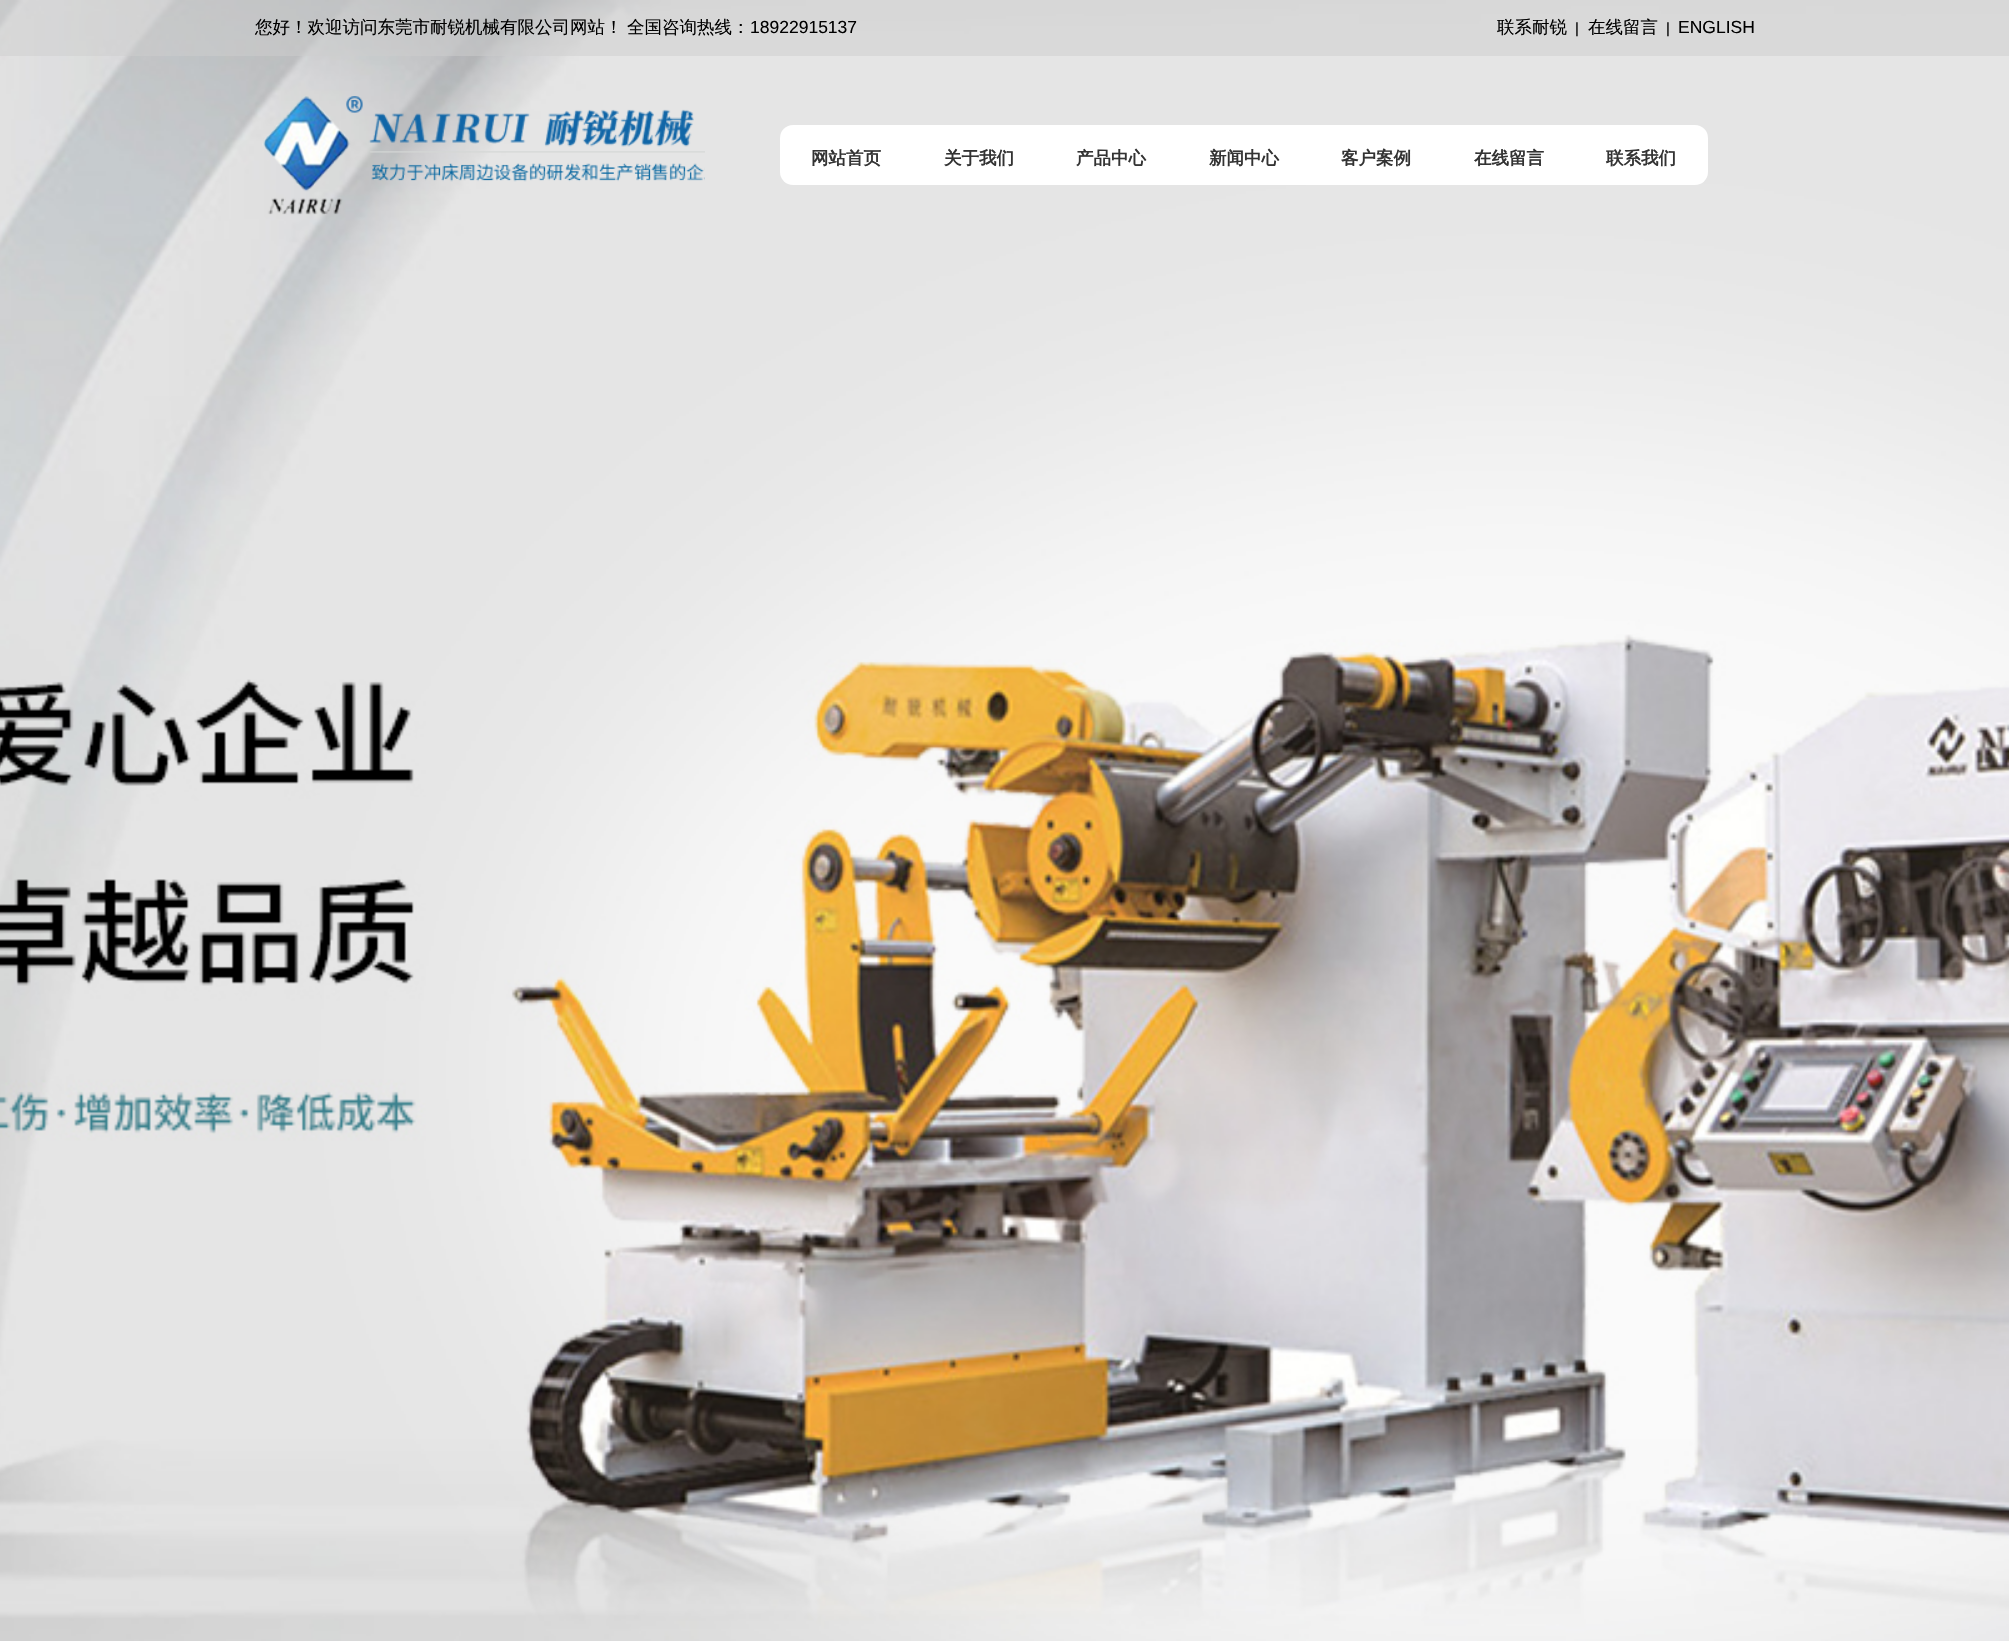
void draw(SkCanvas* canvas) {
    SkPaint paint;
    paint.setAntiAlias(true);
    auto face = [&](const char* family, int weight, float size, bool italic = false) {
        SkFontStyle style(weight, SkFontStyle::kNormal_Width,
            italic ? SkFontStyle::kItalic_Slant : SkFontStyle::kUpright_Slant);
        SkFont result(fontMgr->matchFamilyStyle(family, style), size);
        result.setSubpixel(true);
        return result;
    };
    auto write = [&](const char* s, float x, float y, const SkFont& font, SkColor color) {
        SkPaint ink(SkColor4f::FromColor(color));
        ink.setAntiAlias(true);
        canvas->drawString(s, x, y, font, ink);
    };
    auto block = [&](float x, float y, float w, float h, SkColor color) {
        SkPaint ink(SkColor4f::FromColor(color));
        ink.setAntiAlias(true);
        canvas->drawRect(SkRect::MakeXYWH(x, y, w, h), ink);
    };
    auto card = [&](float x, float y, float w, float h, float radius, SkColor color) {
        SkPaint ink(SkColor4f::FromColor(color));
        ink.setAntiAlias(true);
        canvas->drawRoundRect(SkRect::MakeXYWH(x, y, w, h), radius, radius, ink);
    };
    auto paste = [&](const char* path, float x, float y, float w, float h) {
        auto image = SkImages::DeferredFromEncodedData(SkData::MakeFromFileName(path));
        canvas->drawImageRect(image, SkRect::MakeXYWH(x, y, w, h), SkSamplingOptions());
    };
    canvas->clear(SK_ColorWHITE);
    paste("pic1.png", 0, 0, 2009, 1641);
    block(0, 0, 2009, 56, SkColorSetARGB(128, 206, 206, 206));
    auto kFont1 = face("WenQuanYi Zen Hei", 500, 17.5f);
    write("您好！欢迎访问东莞市耐锐机械有限公司网站！", 255, 33, kFont1, SK_ColorBLACK);
    write("全国咨询热线：", 627, 33, kFont1, SK_ColorBLACK);
    auto kFont2 = face("Liberation Sans", 400, 17.5f);
    write("18922915137", 750, 33, kFont2, SK_ColorBLACK);
    write("联系耐锐", 1497, 33, kFont1, SK_ColorBLACK);
    auto kFont3 = face("Liberation Sans", 400, 15);
    write("|", 1575, 33, kFont3, SK_ColorBLACK);
    write("在线留言", 1588, 33, kFont1, SK_ColorBLACK);
    write("|", 1666, 33, kFont3, SK_ColorBLACK);
    write("ENGLISH", 1678, 33, kFont2, SK_ColorBLACK);
    paste("pic2.png", 262, 96, 443, 119);
    card(780, 125, 928, 60, 13, SK_ColorWHITE);
    auto kFont4 = face("WenQuanYi Zen Hei", 700, 17.5f);
    write("网站首页", 811, 164, kFont4, SkColorSetRGB(51, 51, 51));
    write("关于我们", 944, 164, kFont4, SkColorSetRGB(51, 51, 51));
    write("产品中心", 1076, 164, kFont4, SkColorSetRGB(51, 51, 51));
    write("新闻中心", 1209, 164, kFont4, SkColorSetRGB(51, 51, 51));
    write("客户案例", 1341, 164, kFont4, SkColorSetRGB(51, 51, 51));
    write("在线留言", 1474, 164, kFont4, SkColorSetRGB(51, 51, 51));
    write("联系我们", 1606, 164, kFont4, SkColorSetRGB(51, 51, 51));
}
